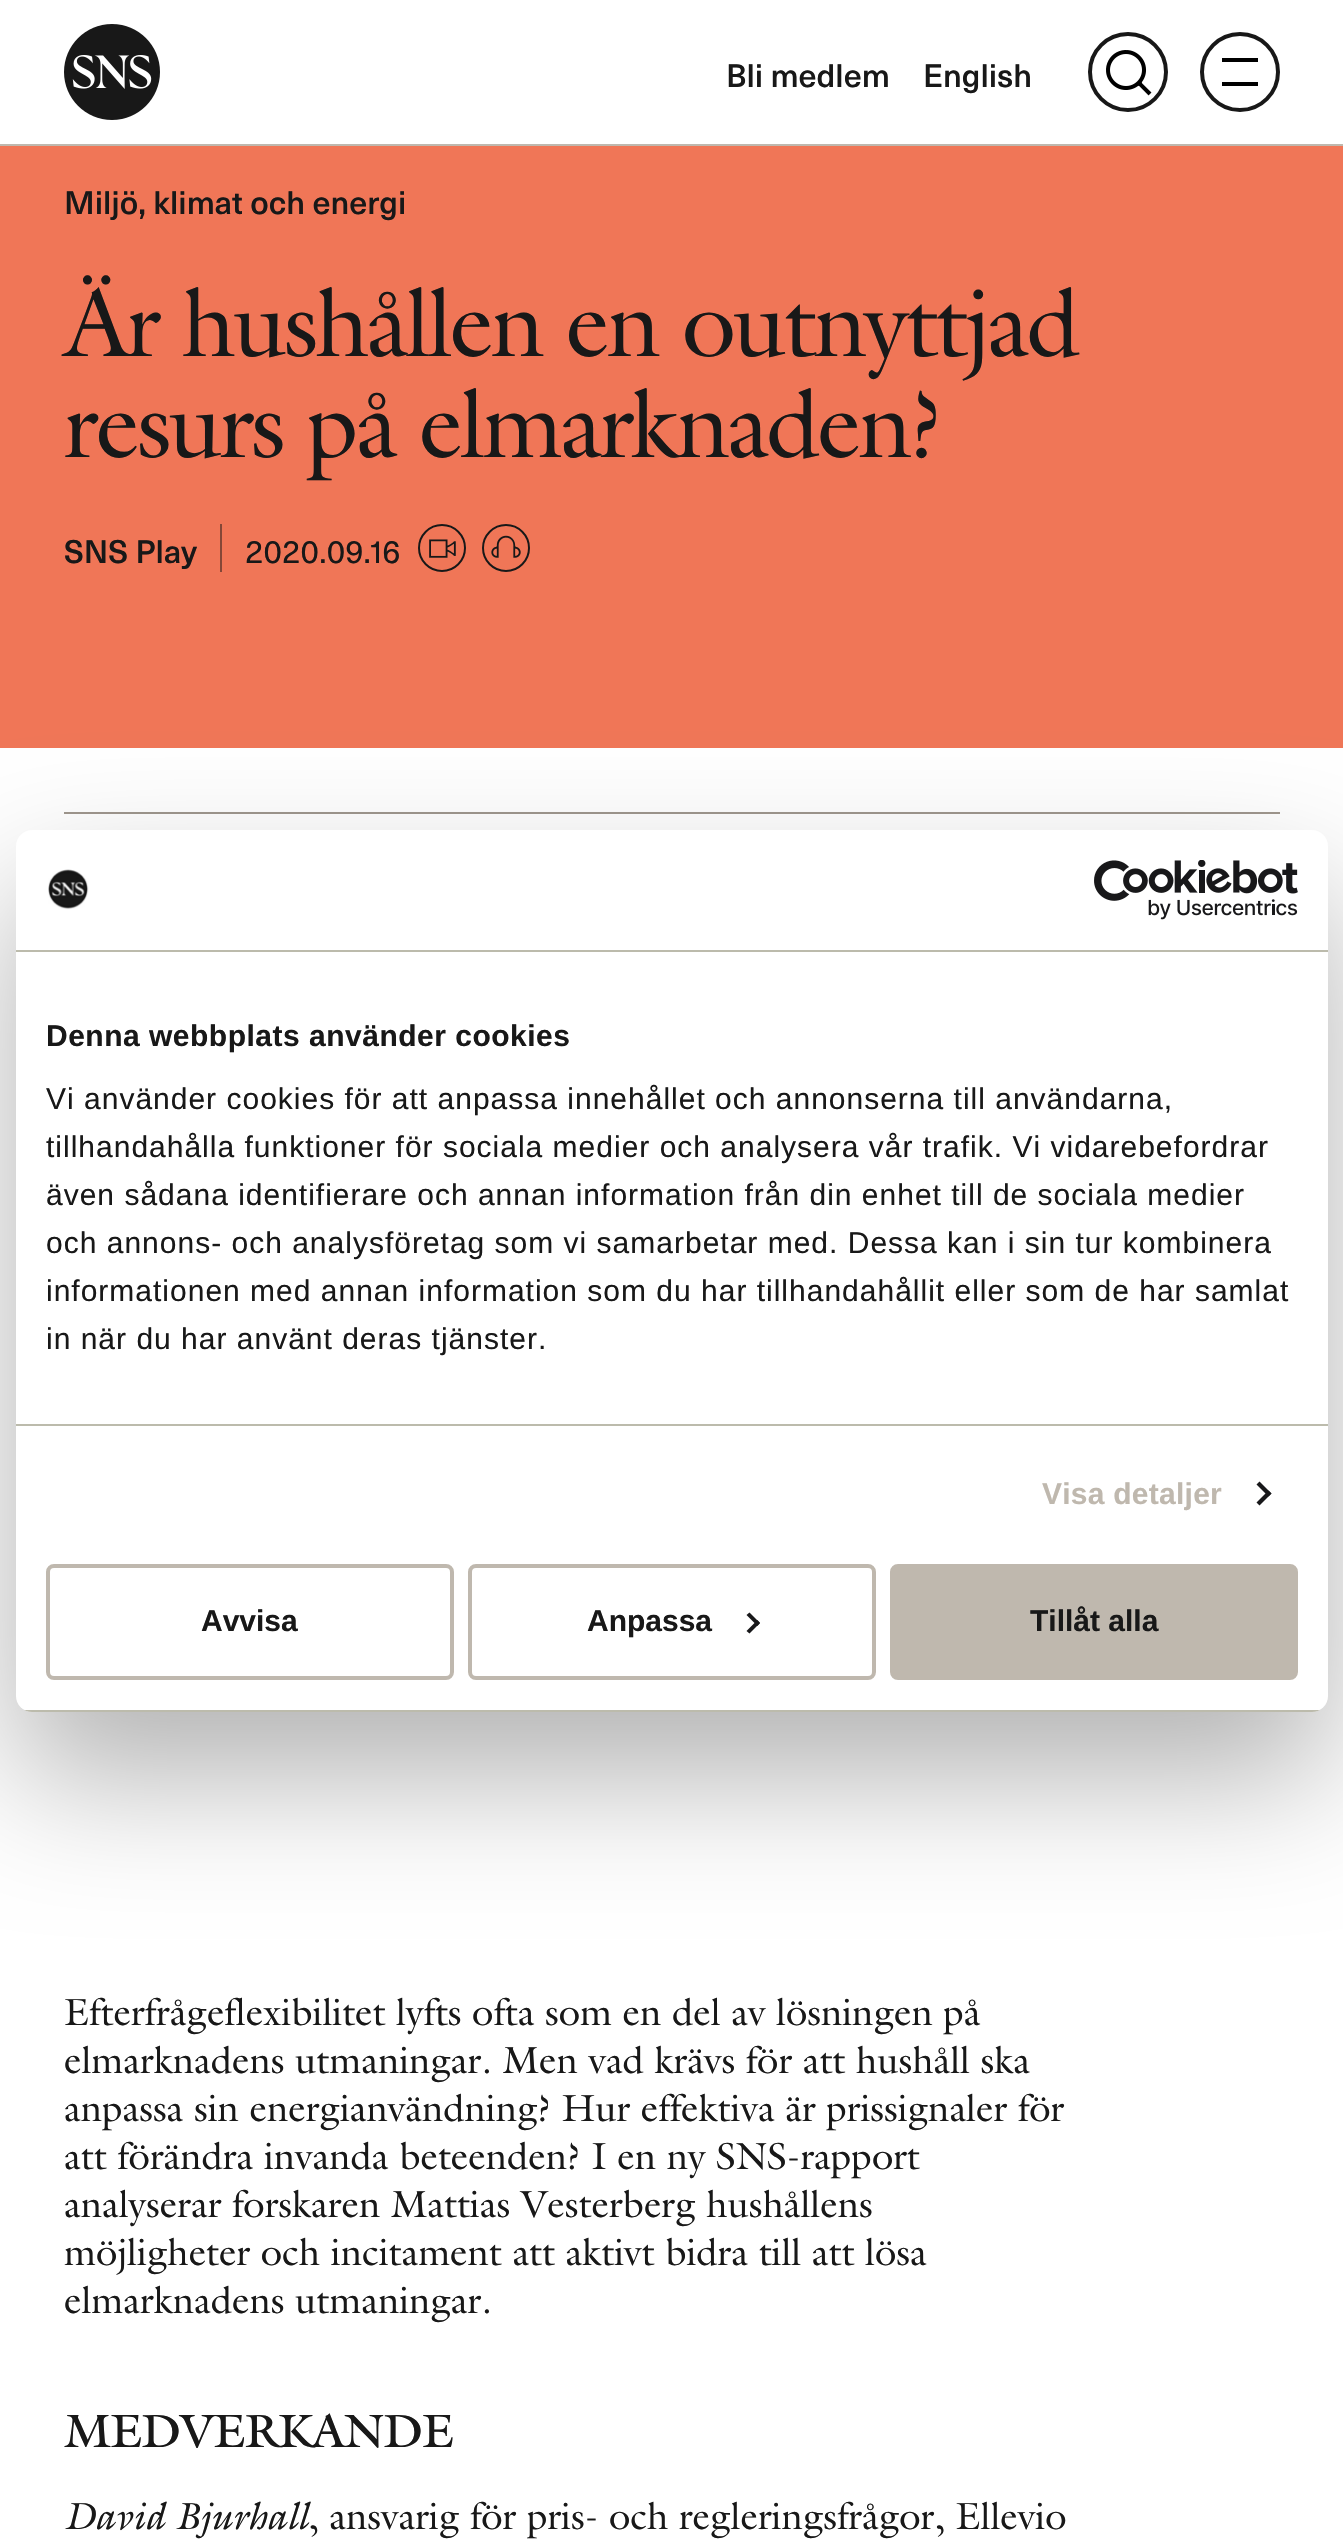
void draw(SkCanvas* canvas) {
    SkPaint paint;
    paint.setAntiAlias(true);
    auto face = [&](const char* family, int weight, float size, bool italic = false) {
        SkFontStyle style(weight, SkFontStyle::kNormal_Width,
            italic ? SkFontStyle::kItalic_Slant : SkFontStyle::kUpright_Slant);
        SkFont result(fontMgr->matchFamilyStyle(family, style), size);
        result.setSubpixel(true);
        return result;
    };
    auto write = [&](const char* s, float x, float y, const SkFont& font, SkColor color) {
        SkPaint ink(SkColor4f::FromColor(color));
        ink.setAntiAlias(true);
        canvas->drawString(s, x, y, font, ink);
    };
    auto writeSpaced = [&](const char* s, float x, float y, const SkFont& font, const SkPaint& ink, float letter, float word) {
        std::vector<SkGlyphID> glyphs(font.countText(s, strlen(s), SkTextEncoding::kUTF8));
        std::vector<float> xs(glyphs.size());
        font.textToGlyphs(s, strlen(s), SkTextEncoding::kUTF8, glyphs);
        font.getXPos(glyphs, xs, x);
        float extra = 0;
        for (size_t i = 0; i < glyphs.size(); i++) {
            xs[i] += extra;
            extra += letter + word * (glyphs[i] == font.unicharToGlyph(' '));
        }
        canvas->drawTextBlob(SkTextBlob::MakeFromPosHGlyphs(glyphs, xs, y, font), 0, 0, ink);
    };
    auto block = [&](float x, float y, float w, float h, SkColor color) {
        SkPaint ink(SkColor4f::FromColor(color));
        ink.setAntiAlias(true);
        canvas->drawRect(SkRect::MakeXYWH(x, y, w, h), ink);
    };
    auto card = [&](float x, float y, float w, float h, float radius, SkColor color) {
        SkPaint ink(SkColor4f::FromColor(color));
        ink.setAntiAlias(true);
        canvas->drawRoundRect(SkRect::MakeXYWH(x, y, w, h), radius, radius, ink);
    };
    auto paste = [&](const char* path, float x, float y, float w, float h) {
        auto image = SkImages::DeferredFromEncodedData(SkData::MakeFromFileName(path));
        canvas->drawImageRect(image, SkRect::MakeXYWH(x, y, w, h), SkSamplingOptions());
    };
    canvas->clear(SK_ColorWHITE);
    block(0, 144, 1343, 2, SkColorSetRGB(191, 184, 174));
    paste("pic1.png", 64, 24, 96, 96);
    auto kFont1 = face("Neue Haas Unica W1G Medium", 500, 32);
    write("Bli medlem", 726, 87, kFont1, SkColorSetRGB(24, 24, 24));
    write("English", 923, 87, kFont1, SkColorSetRGB(24, 24, 24));
    paint.setStyle(SkPaint::kStroke_Style);
    paint.setStrokeWidth(4);
    paint.setColor(SkColorSetRGB(24, 24, 24));
    canvas->drawCircle(1128, 72, 38, paint);
    paste("pic2.png", 1106, 50, 46, 46);
    canvas->drawCircle(1240, 72, 38, paint);
    paint.setStyle(SkPaint::kFill_Style);
    paint.setColor(SK_ColorBLACK);
    canvas->drawPath(SkPathBuilder().moveTo(1258, 58).lineTo(1222, 58).lineTo(1222, 62).lineTo(1258, 62).close().moveTo(1258, 82).lineTo(1222, 82).lineTo(1222, 86).lineTo(1258, 86).close().detach(), paint);
    block(0, 146, 1343, 602, SkColorSetRGB(240, 118, 87));
    write("Miljö, klimat och energi", 64, 214, kFont1, SkColorSetRGB(24, 24, 24));
    auto kFont2 = face("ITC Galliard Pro", 400, 96);
    paint.setColor(SkColorSetRGB(24, 24, 24));
    writeSpaced("Är hushållen en outnyttjad", 64, 356, kFont2, paint, -2.9f, 0);
    writeSpaced("resurs på elmarknaden?", 64, 457, kFont2, paint, -2.9f, 0);
    write("SNS Play", 64, 563, kFont1, SkColorSetRGB(24, 24, 24));
    block(220, 524, 2, 48, SkColorSetRGB(132, 71, 55));
    auto kFont3 = face("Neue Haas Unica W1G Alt", 400, 32);
    write("2020.09.16", 245, 563, kFont3, SkColorSetRGB(24, 24, 24));
    paint.setStyle(SkPaint::kStroke_Style);
    paint.setStrokeWidth(2);
    canvas->drawCircle(442, 548, 23, paint);
    paste("pic3.png", 429, 539, 27, 19);
    canvas->drawCircle(506, 548, 23, paint);
    paste("pic4.png", 491, 535, 30, 23);
    block(64, 812, 1216, 2, SkColorSetRGB(159, 151, 142));
    auto kFont4 = face("ITC Galliard Pro", 400, 38);
    write("Efterfrågeflexibilitet lyfts ofta som en del av lösningen på", 64, 2025, kFont4, SkColorSetRGB(24, 24, 24));
    write("elmarknadens utmaningar. Men vad krävs för att hushåll ska", 64, 2073, kFont4, SkColorSetRGB(24, 24, 24));
    write("anpassa sin energianvändning? Hur effektiva är prissignaler för", 64, 2121, kFont4, SkColorSetRGB(24, 24, 24));
    write("att förändra invanda beteenden? I en ny SNS-rapport", 64, 2169, kFont4, SkColorSetRGB(24, 24, 24));
    write("analyserar forskaren Mattias Vesterberg hushållens", 64, 2217, kFont4, SkColorSetRGB(24, 24, 24));
    write("möjligheter och incitament att aktivt bidra till att lösa", 64, 2265, kFont4, SkColorSetRGB(24, 24, 24));
    write("elmarknadens utmaningar.", 64, 2313, kFont4, SkColorSetRGB(24, 24, 24));
    auto kFont5 = face("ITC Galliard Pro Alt", 400, 64);
    paint.setStyle(SkPaint::kFill_Style);
    writeSpaced("medverkande", 64, 2447, kFont5, paint, -1.6f, 0);
    auto kFont6 = face("ITC Galliard Pro", 400, 38, true);
    write("David Bjurhall", 64, 2529, kFont6, SkColorSetRGB(24, 24, 24));
    write(", ansvarig för pris- och regleringsfrågor, Ellevio", 308, 2529, kFont4, SkColorSetRGB(24, 24, 24));
    paint.setColor(SkColorSetARGB(77, 0, 0, 0));
    paint.setMaskFilter(SkMaskFilter::MakeBlur(kNormal_SkBlurStyle, 68));
    canvas->drawRoundRect(SkRect::MakeXYWH(16, 894, 1312, 882), 16, 16, paint);
    paint.setMaskFilter(nullptr);
    card(16, 830, 1312, 882, 16, SK_ColorWHITE);
    block(16, 950, 1312, 2, SkColorSetRGB(188, 187, 172));
    paste("pic5.png", 48, 869, 41, 41);
    paste("pic6.png", 1094, 860, 204, 60);
    block(16, 1424, 1312, 2, SkColorSetRGB(188, 187, 172));
    auto kFont7 = face("Liberation Sans", 700, 30);
    paint.setColor(SkColorSetRGB(24, 24, 24));
    writeSpaced("Denna webbplats använder cookies", 46, 1046, kFont7, paint, 0.5f, 0);
    auto kFont8 = face("Liberation Sans", 400, 30);
    writeSpaced("Vi använder cookies för att anpassa innehållet och annonserna till användarna,", 46, 1109, kFont8, paint, 1, 0);
    writeSpaced("tillhandahålla funktioner för sociala medier och analysera vår trafik. Vi vidarebefordrar", 46, 1157, kFont8, paint, 1, 0);
    writeSpaced("även sådana identifierare och annan information från din enhet till de sociala medier", 46, 1205, kFont8, paint, 1, 0);
    writeSpaced("och annons- och analysföretag som vi samarbetar med. Dessa kan i sin tur kombinera", 46, 1253, kFont8, paint, 1, 0);
    writeSpaced("informationen med annan information som du har tillhandahållit eller som de har samlat", 46, 1301, kFont8, paint, 1, 0);
    writeSpaced("in när du har använt deras tjänster.", 46, 1349, kFont8, paint, 1, 0);
    paint.setColor(SkColorSetRGB(191, 184, 174));
    writeSpaced("Visa detaljer", 1042, 1504, kFont7, paint, 0.25f, 0);
    paint.setColor(SkColorSetRGB(24, 24, 26));
    canvas->drawPath(SkPathBuilder().moveTo(1259.5f, 1481.5f).lineTo(1271.5f, 1493.5f).lineTo(1268.5f, 1496.5f).lineTo(1256.5f, 1484.5f).close().detach(), paint);
    canvas->drawPath(SkPathBuilder().moveTo(1268.5f, 1490.5f).lineTo(1271.5f, 1493.5f).lineTo(1259.5f, 1505.5f).lineTo(1256.5f, 1502.5f).close().detach(), paint);
    canvas->save();
    canvas->clipPath(SkPathBuilder().moveTo(32, 830).lineTo(1312, 830).cubicTo(1321, 830, 1328, 837, 1328, 846).lineTo(1328, 1696).cubicTo(1328, 1705, 1321, 1712, 1312, 1712).lineTo(32, 1712).cubicTo(23, 1712, 16, 1705, 16, 1696).lineTo(16, 846).cubicTo(16, 837, 23, 830, 32, 830).close().detach(), true);
    block(16, 1710, 1312, 2, SkColorSetRGB(188, 187, 172));
    canvas->restore();
    paint.setStyle(SkPaint::kStroke_Style);
    paint.setStrokeWidth(4);
    paint.setColor(SkColorSetRGB(191, 184, 174));
    canvas->drawRoundRect(SkRect::MakeXYWH(48, 1566, 404, 112), 6, 6, paint);
    write("Avvisa", 201, 1631, kFont7, SkColorSetRGB(24, 24, 24));
    canvas->drawRoundRect(SkRect::MakeXYWH(470, 1566, 404, 112), 6, 6, paint);
    write("Anpassa", 587, 1631, kFont7, SkColorSetRGB(24, 24, 24));
    paint.setStyle(SkPaint::kFill_Style);
    paint.setColor(SkColorSetRGB(24, 24, 26));
    canvas->drawPath(SkPathBuilder().moveTo(749.5f, 1612.5f).lineTo(760, 1623).lineTo(757.5f, 1626).lineTo(746.5f, 1615).close().detach(), paint);
    canvas->drawPath(SkPathBuilder().moveTo(757.5f, 1620).lineTo(760, 1623).lineTo(749.5f, 1633.5f).lineTo(746.5f, 1631).close().detach(), paint);
    paint.setColor(SkColorSetRGB(191, 184, 174));
    canvas->drawRoundRect(SkRect::MakeXYWH(892, 1566, 404, 112), 6, 6, paint);
    paint.setStyle(SkPaint::kStroke_Style);
    canvas->drawRoundRect(SkRect::MakeXYWH(892, 1566, 404, 112), 6, 6, paint);
    write("Tillåt alla", 1030, 1631, kFont7, SkColorSetRGB(24, 24, 24));
}
